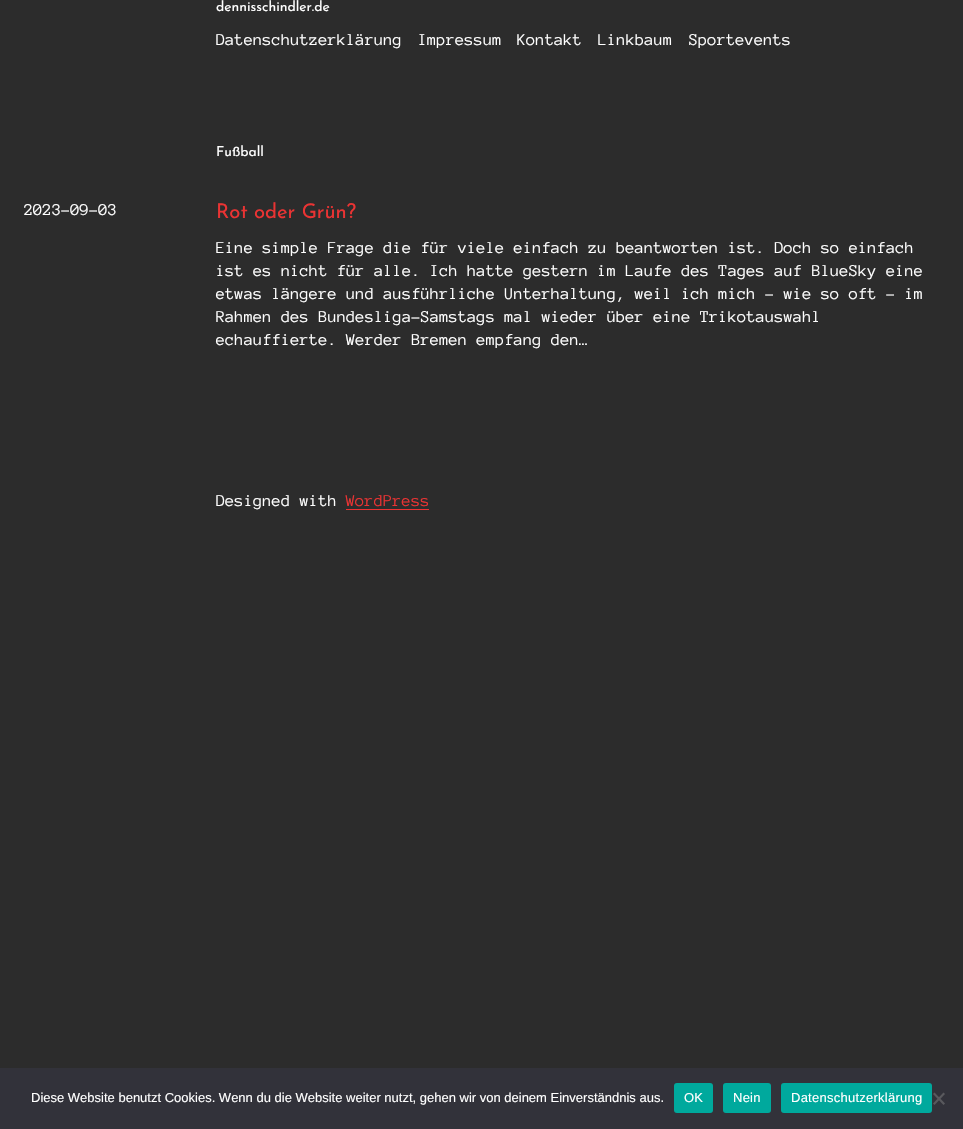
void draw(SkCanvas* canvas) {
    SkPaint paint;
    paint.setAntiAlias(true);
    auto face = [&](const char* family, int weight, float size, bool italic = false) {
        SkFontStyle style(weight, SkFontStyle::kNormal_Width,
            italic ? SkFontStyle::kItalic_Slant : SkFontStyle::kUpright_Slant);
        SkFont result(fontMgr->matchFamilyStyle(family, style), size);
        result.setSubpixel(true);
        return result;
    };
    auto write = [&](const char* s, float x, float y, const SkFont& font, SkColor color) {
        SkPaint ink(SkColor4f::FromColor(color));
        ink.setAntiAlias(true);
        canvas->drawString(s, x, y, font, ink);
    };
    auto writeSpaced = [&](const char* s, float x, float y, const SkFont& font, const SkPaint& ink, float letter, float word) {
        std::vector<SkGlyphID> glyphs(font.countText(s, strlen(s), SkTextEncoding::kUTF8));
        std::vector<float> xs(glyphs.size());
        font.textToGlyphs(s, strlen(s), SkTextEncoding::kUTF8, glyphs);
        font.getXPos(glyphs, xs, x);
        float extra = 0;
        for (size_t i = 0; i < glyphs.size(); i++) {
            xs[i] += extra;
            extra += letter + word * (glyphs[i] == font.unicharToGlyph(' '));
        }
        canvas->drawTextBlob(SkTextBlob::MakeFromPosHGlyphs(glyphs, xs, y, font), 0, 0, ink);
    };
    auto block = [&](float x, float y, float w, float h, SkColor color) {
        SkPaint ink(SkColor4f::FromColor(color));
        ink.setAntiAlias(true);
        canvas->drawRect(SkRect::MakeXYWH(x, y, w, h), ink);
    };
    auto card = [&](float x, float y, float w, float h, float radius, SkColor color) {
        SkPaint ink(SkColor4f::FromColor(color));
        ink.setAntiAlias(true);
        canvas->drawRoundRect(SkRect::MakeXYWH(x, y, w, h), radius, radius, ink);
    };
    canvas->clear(SkColorSetRGB(44, 44, 44));
    auto kFont1 = face("Josefin Sans", 400, 14);
    write("dennisschindler.de", 216, 11, kFont1, SK_ColorWHITE);
    auto kFont2 = face("Anonymous Pro", 400, 17.05f);
    write("Datenschutzerklärung", 216, 45, kFont2, SK_ColorWHITE);
    write("Impressum", 418, 45, kFont2, SK_ColorWHITE);
    write("Kontakt", 517, 45, kFont2, SK_ColorWHITE);
    write("Linkbaum", 598, 45, kFont2, SK_ColorWHITE);
    write("Sportevents", 689, 45, kFont2, SK_ColorWHITE);
    write("Fußball", 216, 156, kFont1, SK_ColorWHITE);
    write("2023-09-03", 24, 215, kFont2, SK_ColorWHITE);
    auto kFont3 = face("Josefin Sans", 400, 20.25f);
    write("Rot oder Grün?", 216, 218, kFont3, SkColorSetRGB(234, 51, 51));
    write("Eine simple Frage die für viele einfach zu beantworten ist. Doch so einfach", 216, 253, kFont2, SK_ColorWHITE);
    write("ist es nicht für alle. Ich hatte gestern im Laufe des Tages auf BlueSky eine", 216, 276, kFont2, SK_ColorWHITE);
    write("etwas längere und ausführliche Unterhaltung, weil ich mich – wie so oft – im", 216, 299, kFont2, SK_ColorWHITE);
    write("Rahmen des Bundesliga-Samstags mal wieder über eine Trikotauswahl", 216, 322, kFont2, SK_ColorWHITE);
    write("echauffierte. Werder Bremen empfang den…", 216, 345, kFont2, SK_ColorWHITE);
    write("Designed with", 216, 506, kFont2, SK_ColorWHITE);
    write("WordPress", 346, 506, kFont2, SkColorSetRGB(234, 51, 51));
    block(346, 509, 83, 1, SkColorSetRGB(234, 51, 51));
    block(0, 1068, 963, 61, SkColorSetRGB(50, 50, 58));
    auto kFont4 = face("Liberation Sans", 400, 13);
    write("Diese Website benutzt Cookies. Wenn du die Website weiter nutzt, gehen wir von deinem Einverständnis aus.", 31, 1102, kFont4, SK_ColorWHITE);
    card(674, 1083, 39, 30, 3, SkColorSetRGB(0, 169, 157));
    paint.setColor(SK_ColorWHITE);
    writeSpaced("OK", 684, 1102, kFont4, paint, 0.25f, 0);
    card(723, 1083, 48, 30, 3, SkColorSetRGB(0, 169, 157));
    writeSpaced("Nein", 733, 1102, kFont4, paint, 0.25f, 0);
    card(781, 1083, 151, 30, 3, SkColorSetRGB(0, 169, 157));
    writeSpaced("Datenschutzerklärung", 791, 1102, kFont4, paint, 0.25f, 0);
    paint.setColor(SkColorSetRGB(89, 89, 93));
    canvas->drawPath(SkPathBuilder().moveTo(943.5f, 1092.5f).lineTo(945, 1094).lineTo(934.5f, 1105).lineTo(933, 1103.5f).close().detach(), paint);
    canvas->drawPath(SkPathBuilder().moveTo(933, 1094).lineTo(934.5f, 1092.5f).lineTo(945, 1103.5f).lineTo(943.5f, 1105).close().detach(), paint);
}
